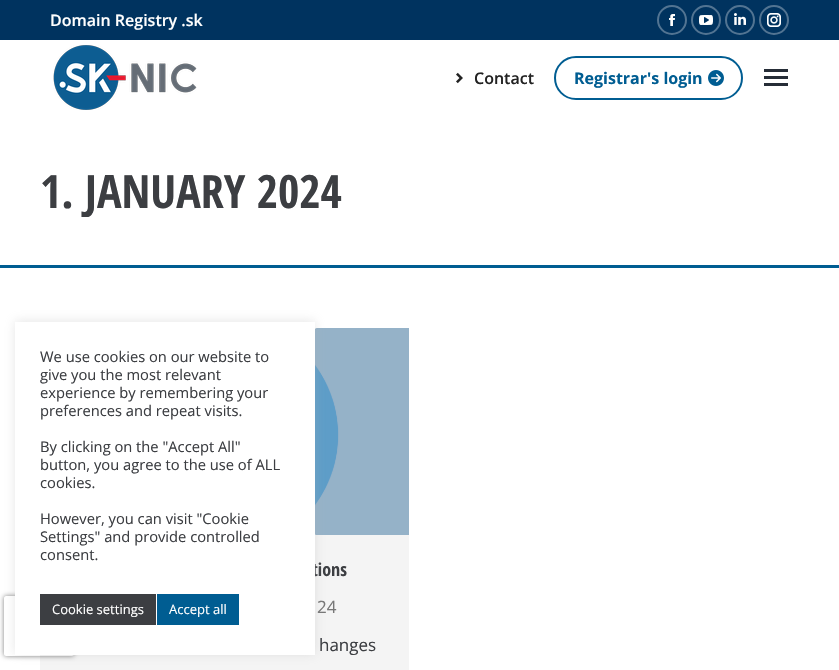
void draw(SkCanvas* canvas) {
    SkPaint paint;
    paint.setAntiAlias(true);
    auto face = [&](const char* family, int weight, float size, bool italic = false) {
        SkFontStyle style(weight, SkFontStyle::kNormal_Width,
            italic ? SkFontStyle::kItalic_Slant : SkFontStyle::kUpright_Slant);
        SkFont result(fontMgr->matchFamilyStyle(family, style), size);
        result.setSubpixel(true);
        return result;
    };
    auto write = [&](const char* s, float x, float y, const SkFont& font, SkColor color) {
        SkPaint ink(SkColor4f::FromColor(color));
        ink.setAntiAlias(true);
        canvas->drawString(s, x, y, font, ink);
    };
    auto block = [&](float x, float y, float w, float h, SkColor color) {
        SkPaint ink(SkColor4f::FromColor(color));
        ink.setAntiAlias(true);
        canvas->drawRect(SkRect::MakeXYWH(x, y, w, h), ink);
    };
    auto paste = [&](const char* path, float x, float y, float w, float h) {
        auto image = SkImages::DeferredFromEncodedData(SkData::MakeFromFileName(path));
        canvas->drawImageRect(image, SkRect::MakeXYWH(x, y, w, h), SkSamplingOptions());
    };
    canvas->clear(SK_ColorWHITE);
    block(0, 0, 839, 40, SkColorSetRGB(0, 51, 95));
    auto kFont1 = face("Open Sans", 600, 16);
    write("Domain Registry .sk", 50, 26, kFont1, SK_ColorWHITE);
    paint.setStyle(SkPaint::kStroke_Style);
    paint.setStrokeWidth(2);
    paint.setColor(SkColorSetRGB(82, 116, 146));
    canvas->drawCircle(672, 20, 14, paint);
    paste("pic1.png", 669, 14, 6, 12);
    canvas->drawCircle(706, 20, 14, paint);
    paste("pic2.png", 699, 15, 14, 10);
    canvas->drawCircle(740, 20, 14, paint);
    paste("pic3.png", 734, 13, 12, 12);
    canvas->drawCircle(774, 20, 14, paint);
    paste("pic4.png", 767, 13, 14, 14);
    paste("pic5.png", 53, 45, 144, 65);
    paste("pic6.png", 456, 72, 7, 12);
    write("Contact", 474, 84, kFont1, SkColorSetRGB(34, 34, 34));
    paint.setColor(SkColorSetRGB(0, 93, 146));
    canvas->drawRoundRect(SkRect::MakeXYWH(555, 57, 187, 42), 21, 21, paint);
    auto kFont2 = face("Open Sans", 700, 16);
    write("Registrar's login", 574, 84, kFont2, SkColorSetRGB(0, 93, 146));
    paste("pic7.png", 708, 70, 16, 16);
    block(764, 69, 24, 3, SkColorSetRGB(38, 45, 55));
    block(764, 76, 24, 3, SkColorSetRGB(38, 45, 55));
    block(764, 83, 24, 3, SkColorSetRGB(38, 45, 55));
    block(0, 265, 839, 3, SkColorSetRGB(0, 93, 146));
    canvas->save();
    canvas->clipRect(SkRect::MakeXYWH(40, 163, 302, 54));
    auto kFont3 = face("Open Sans Condensed", 700, 46);
    write("1. JANUARY 2024", 40, 208, kFont3, SkColorSetRGB(60, 62, 66));
    canvas->restore();
    block(40, 535, 369, 135, SkColorSetRGB(244, 244, 244));
    paste("pic8.png", 315, 328, 94, 207);
    auto kFont4 = face("Open Sans Condensed", 700, 18);
    write("tions", 312, 576, kFont4, SkColorSetRGB(60, 62, 66));
    auto kFont5 = face("Open Sans", 400, 17);
    write("24", 317, 613, kFont5, SkColorSetRGB(119, 119, 119));
    write("hanges", 319, 651, kFont5, SkColorSetRGB(60, 62, 66));
    paint.setStyle(SkPaint::kFill_Style);
    paint.setColor(SkColorSetARGB(77, 172, 171, 171));
    paint.setMaskFilter(SkMaskFilter::MakeBlur(kNormal_SkBlurStyle, 5));
    canvas->drawRect(SkRect::MakeXYWH(15, 321, 300, 333), paint);
    paint.setMaskFilter(nullptr);
    canvas->save();
    canvas->clipPath(SkPathBuilder(SkPathFillType::kEvenOdd).moveTo(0, 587).lineTo(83, 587).lineTo(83, 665).lineTo(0, 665).close().moveTo(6, 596).lineTo(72, 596).cubicTo(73, 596, 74, 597, 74, 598).lineTo(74, 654).cubicTo(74, 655, 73, 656, 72, 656).lineTo(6, 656).cubicTo(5, 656, 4, 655, 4, 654).lineTo(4, 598).cubicTo(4, 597, 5, 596, 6, 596).close().detach(), true);
    paint.setColor(SkColorSetRGB(128, 128, 128));
    paint.setMaskFilter(SkMaskFilter::MakeBlur(kNormal_SkBlurStyle, 2.5f));
    canvas->drawRoundRect(SkRect::MakeXYWH(4, 596, 70, 60), 2, 2, paint);
    paint.setMaskFilter(nullptr);
    canvas->restore();
    block(15, 322, 300, 333, SK_ColorWHITE);
    auto kFont6 = face("Open Sans", 400, 14.7f);
    write("We use cookies on our website to", 40, 362, kFont6, SkColorSetRGB(60, 62, 66));
    write("give you the most relevant", 40, 380, kFont6, SkColorSetRGB(60, 62, 66));
    write("experience by remembering your", 40, 398, kFont6, SkColorSetRGB(60, 62, 66));
    write("preferences and repeat visits.", 40, 416, kFont6, SkColorSetRGB(60, 62, 66));
    write("By clicking on the \"Accept All\"", 40, 452, kFont6, SkColorSetRGB(60, 62, 66));
    write("button, you agree to the use of ALL", 40, 470, kFont6, SkColorSetRGB(60, 62, 66));
    write("cookies.", 40, 488, kFont6, SkColorSetRGB(60, 62, 66));
    write("However, you can visit \"Cookie", 40, 524, kFont6, SkColorSetRGB(60, 62, 66));
    write("Settings\" and provide controlled", 40, 542, kFont6, SkColorSetRGB(60, 62, 66));
    write("consent.", 40, 560, kFont6, SkColorSetRGB(60, 62, 66));
    block(40, 594, 116, 31, SkColorSetRGB(60, 62, 66));
    auto kFont7 = face("Open Sans", 400, 13);
    write("Cookie settings", 52, 614, kFont7, SK_ColorWHITE);
    block(157, 594, 82, 31, SkColorSetRGB(0, 93, 146));
    write("Accept all", 169, 614, kFont7, SK_ColorWHITE);
}
